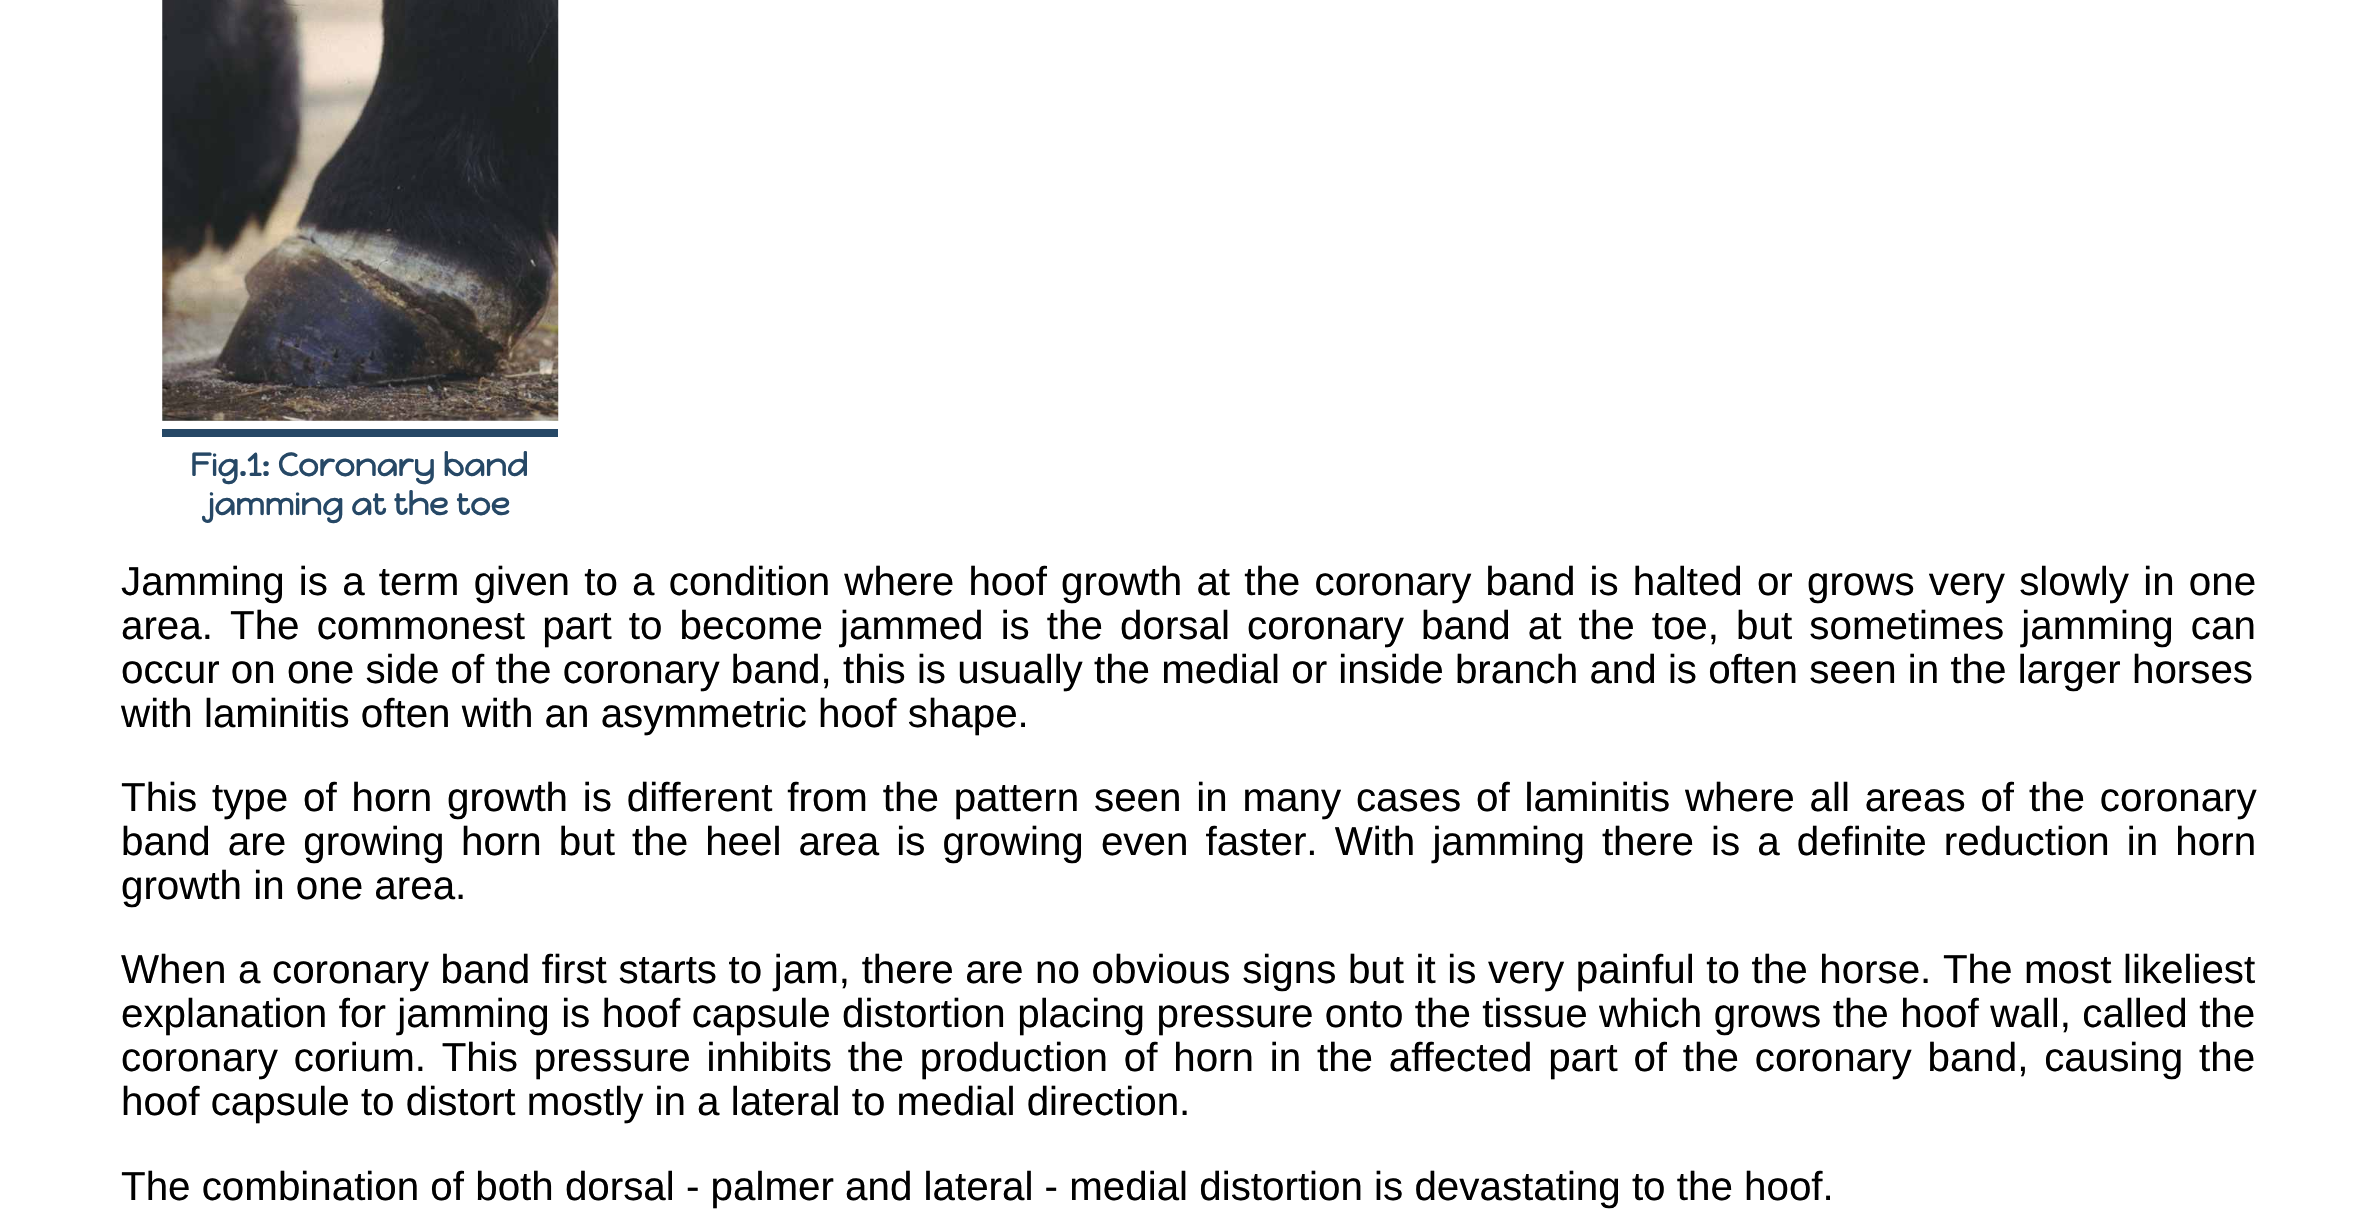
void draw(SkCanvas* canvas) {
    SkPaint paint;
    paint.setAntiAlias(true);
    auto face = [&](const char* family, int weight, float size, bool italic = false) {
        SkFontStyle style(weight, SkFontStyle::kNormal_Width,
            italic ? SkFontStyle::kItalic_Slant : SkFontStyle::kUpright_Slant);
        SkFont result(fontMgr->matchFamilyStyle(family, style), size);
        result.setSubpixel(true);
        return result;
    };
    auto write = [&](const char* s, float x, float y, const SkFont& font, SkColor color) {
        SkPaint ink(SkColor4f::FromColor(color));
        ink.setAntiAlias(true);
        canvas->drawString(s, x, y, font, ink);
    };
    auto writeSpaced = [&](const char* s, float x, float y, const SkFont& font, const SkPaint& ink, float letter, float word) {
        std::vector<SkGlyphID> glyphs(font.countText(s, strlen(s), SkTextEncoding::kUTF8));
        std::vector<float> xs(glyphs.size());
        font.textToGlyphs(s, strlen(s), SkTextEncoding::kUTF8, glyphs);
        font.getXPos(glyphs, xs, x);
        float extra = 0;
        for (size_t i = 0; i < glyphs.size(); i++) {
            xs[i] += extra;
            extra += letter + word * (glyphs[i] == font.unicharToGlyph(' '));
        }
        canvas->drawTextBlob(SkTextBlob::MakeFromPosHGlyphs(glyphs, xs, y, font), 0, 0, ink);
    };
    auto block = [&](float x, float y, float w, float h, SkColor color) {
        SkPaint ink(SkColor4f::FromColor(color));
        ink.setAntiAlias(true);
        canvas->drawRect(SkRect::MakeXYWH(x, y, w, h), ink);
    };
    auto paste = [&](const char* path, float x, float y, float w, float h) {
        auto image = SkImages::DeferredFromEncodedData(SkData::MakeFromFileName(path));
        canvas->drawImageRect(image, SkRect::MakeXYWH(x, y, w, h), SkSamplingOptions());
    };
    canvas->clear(SK_ColorWHITE);
    block(162, 429, 396, 8, SkColorSetRGB(38, 72, 102));
    paste("pic1.png", 162, 0, 397, 421);
    auto kFont1 = face("Happy Monkey", 700, 32.25f);
    write("Fig.1: Coronary band", 190, 476, kFont1, SkColorSetRGB(38, 72, 102));
    write("jamming at the toe", 208, 515, kFont1, SkColorSetRGB(38, 72, 102));
    auto kFont2 = face("Liberation Sans", 400, 40.33f);
    paint.setColor(SK_ColorBLACK);
    writeSpaced("Jamming is a term given to a condition where hoof growth at the coronary band is halted or grows very slowly in one", 121, 595, kFont2, paint, 0, 3);
    writeSpaced("area. The commonest part to become jammed is the dorsal coronary band at the toe, but sometimes jamming can", 121, 639, kFont2, paint, 0, 5.9f);
    write("occur on one side of the coronary band, this is usually the medial or inside branch and is often seen in the larger horses", 121, 683, kFont2, SK_ColorBLACK);
    write("with laminitis often with an asymmetric hoof shape.", 121, 727, kFont2, SK_ColorBLACK);
    writeSpaced("This type of horn growth is different from the pattern seen in many cases of laminitis where all areas of the coronary", 121, 811, kFont2, paint, 0, 3.6f);
    writeSpaced("band are growing", 121, 855, kFont2, paint, 0, 5.9f);
    writeSpaced("horn but the heel area is growing even faster. With jamming there is a definite reduction in horn", 461, 855, kFont2, paint, 0, 5.9f);
    write("growth in one area.", 121, 899, kFont2, SK_ColorBLACK);
    writeSpaced("When a coronary band first starts to jam, there are no obvious signs but it is very painful to the horse. The most likeliest", 121, 983, kFont2, paint, 0, 0.4f);
    writeSpaced("explanation for jamming is hoof capsule distortion placing pressure onto the tissue which grows the hoof wall, called the", 121, 1027, kFont2, paint, 0, 0.25f);
    writeSpaced("coronary corium. This pressure inhibits the production of horn in the affected part of the coronary band, causing the", 121, 1071, kFont2, paint, 0, 4.6f);
    write("hoof capsule to distort mostly in a lateral to medial direction.", 121, 1115, kFont2, SK_ColorBLACK);
    write("The combination of both dorsal - palmer and lateral - medial distortion is devastating to the hoof.", 121, 1200, kFont2, SK_ColorBLACK);
}
